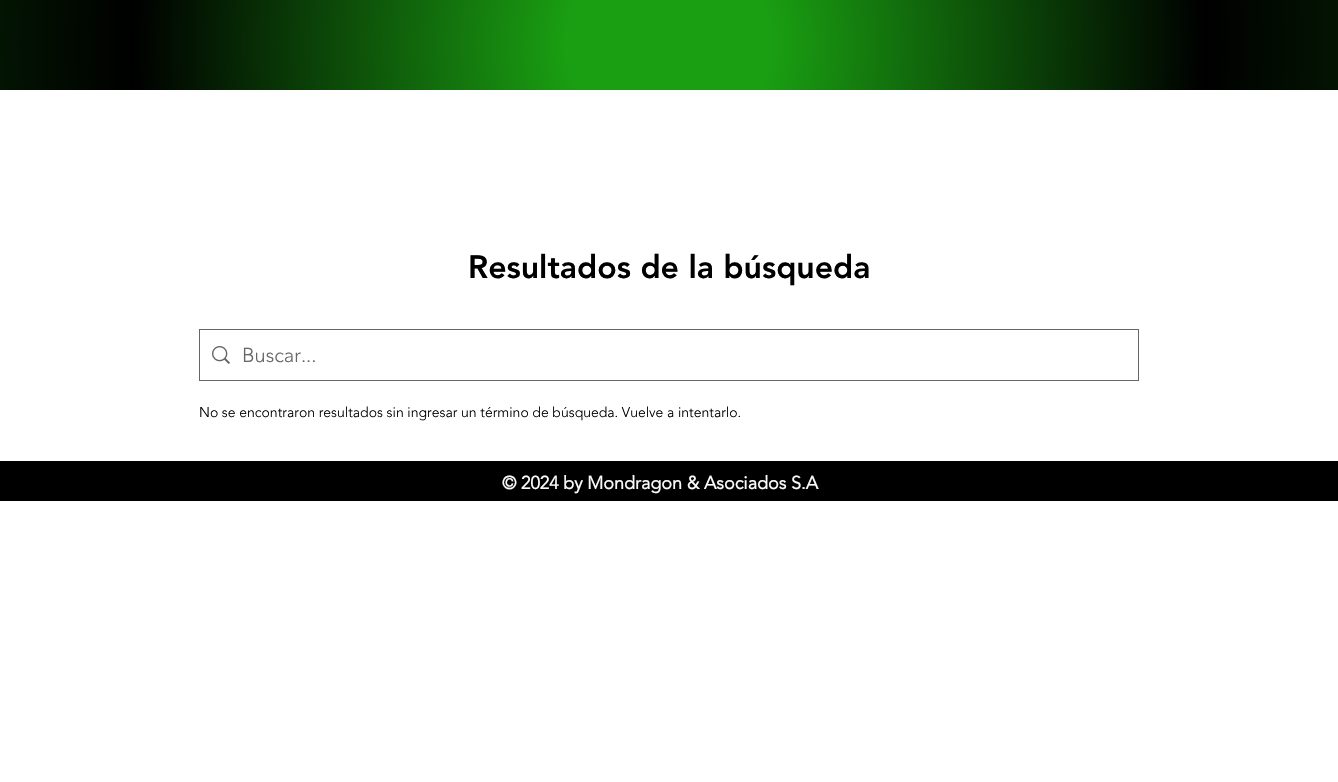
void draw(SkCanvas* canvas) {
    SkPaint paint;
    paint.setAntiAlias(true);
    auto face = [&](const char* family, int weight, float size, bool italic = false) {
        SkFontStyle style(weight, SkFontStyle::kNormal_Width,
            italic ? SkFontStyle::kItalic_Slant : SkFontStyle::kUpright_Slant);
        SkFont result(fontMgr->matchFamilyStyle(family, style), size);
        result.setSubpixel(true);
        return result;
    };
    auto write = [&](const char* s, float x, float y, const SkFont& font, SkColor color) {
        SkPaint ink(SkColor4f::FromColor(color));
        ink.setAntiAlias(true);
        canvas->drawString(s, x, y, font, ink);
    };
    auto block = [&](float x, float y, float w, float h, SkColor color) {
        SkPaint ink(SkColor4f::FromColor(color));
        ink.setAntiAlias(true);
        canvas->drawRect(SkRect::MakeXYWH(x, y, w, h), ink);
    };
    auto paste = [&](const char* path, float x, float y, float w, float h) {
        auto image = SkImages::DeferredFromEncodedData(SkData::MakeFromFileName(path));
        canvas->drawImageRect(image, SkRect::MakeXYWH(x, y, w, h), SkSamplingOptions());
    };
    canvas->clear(SK_ColorWHITE);
    {
        const SkColor colors[] = {SkColorSetRGB(26, 159, 18), SK_ColorBLACK, SkColorSetRGB(3, 20, 2)};
        const float stops[] = {0.15f, 0.8f, 1};
        paint.setShader(SkGradientShader::MakeRadial({669, 45}, 671, colors, stops, 3, SkTileMode::kClamp));
        paint.setAlpha(255);
    }
    canvas->drawRect(SkRect::MakeXYWH(0, 0, 1338, 90), paint);
    auto kFont1 = face("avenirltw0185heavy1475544", 900, 32);
    write("Resultados de la búsqueda", 468, 278, kFont1, SK_ColorBLACK);
    paint.setStyle(SkPaint::kStroke_Style);
    paint.setStrokeWidth(1);
    paint.setShader(nullptr);
    paint.setColor(SkColorSetRGB(102, 102, 102));
    canvas->drawRect(SkRect::MakeXYWH(199.5f, 329.5f, 939, 51), paint);
    paste("pic1.png", 212, 346, 18, 18);
    auto kFont2 = face("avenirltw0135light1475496", 300, 20);
    write("Buscar...", 242, 362, kFont2, SkColorSetRGB(102, 102, 102));
    auto kFont3 = face("avenirltw0135light1475496", 300, 14);
    write("No se encontraron resultados sin ingresar un término de búsqueda. Vuelve a intentarlo.", 199, 417, kFont3, SK_ColorBLACK);
    block(0, 461, 1338, 40, SK_ColorBLACK);
    auto kFont4 = face("avenirltw0135light1475496", 700, 18);
    write("© 2024 by Mondragon & Asociados S.A", 502, 489, kFont4, SkColorSetRGB(250, 250, 250));
}
